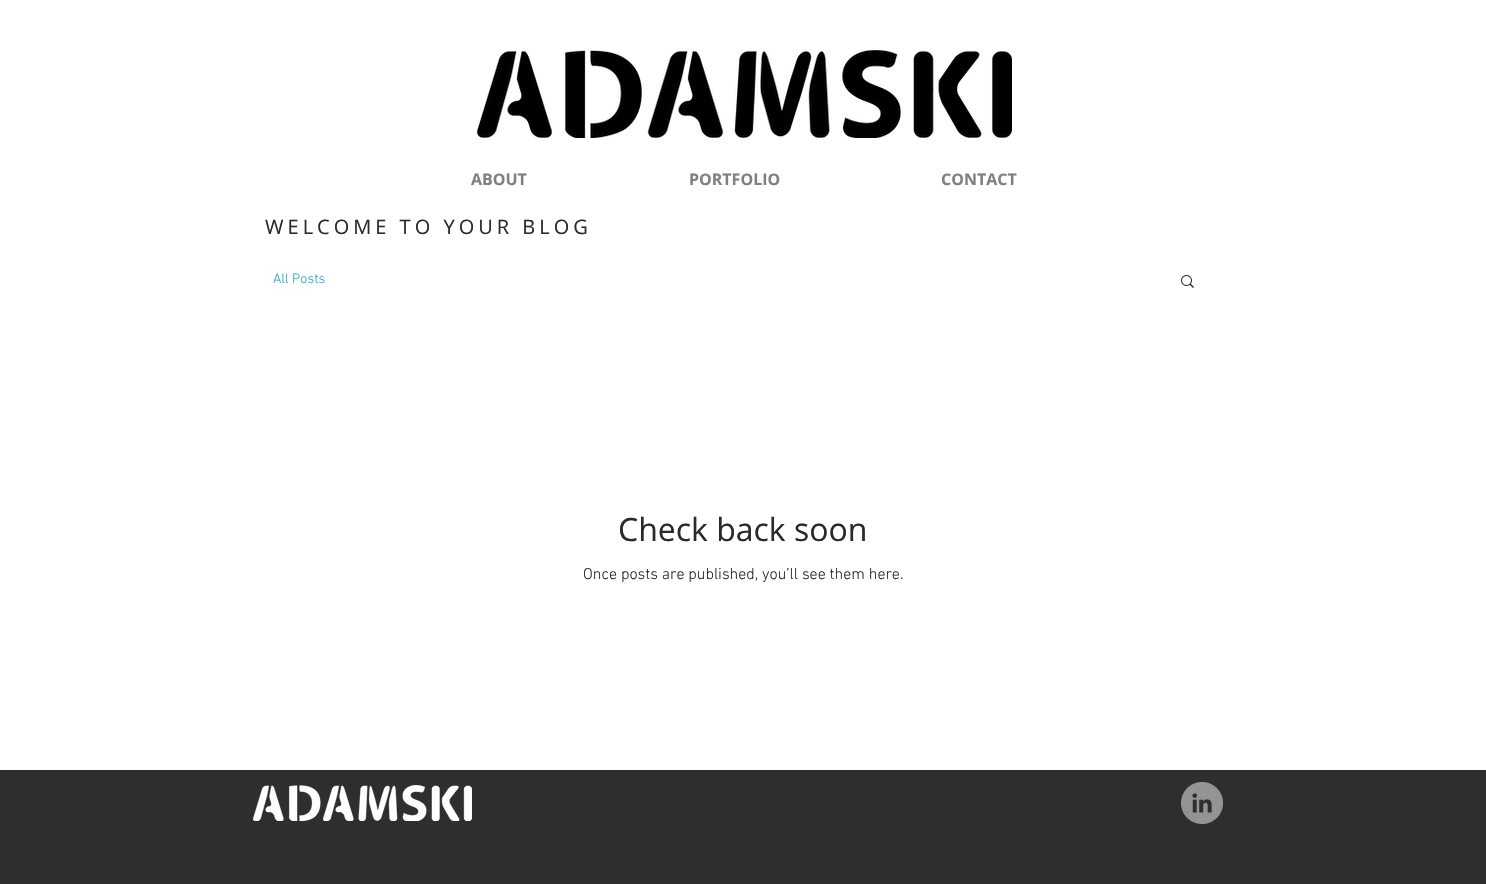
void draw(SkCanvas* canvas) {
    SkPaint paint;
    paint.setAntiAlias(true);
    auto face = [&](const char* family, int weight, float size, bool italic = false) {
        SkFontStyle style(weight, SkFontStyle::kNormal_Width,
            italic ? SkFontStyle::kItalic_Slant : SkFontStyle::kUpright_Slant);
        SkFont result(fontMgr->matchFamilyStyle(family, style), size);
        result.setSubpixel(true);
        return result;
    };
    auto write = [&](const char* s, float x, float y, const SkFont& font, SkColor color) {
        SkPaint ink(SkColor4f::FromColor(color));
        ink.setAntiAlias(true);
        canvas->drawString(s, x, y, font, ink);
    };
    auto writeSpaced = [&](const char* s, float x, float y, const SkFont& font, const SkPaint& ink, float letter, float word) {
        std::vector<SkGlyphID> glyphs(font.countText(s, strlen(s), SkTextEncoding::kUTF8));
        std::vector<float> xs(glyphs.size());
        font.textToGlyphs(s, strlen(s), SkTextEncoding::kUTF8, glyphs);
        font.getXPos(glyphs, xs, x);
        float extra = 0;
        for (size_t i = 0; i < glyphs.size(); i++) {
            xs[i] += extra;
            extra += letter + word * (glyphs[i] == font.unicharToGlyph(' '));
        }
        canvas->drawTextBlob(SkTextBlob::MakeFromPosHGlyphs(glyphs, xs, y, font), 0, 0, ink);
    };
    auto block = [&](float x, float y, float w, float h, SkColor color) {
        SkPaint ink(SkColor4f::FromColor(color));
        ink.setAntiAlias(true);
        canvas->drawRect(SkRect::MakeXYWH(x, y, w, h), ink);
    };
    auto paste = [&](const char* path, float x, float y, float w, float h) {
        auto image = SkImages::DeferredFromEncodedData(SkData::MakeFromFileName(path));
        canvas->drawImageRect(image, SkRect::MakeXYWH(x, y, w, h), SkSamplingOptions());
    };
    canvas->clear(SK_ColorWHITE);
    paste("pic1.png", 477, 50, 535, 88);
    auto kFont1 = face("Open Sans", 700, 16);
    write("ABOUT", 471, 185, kFont1, SkColorSetRGB(128, 128, 128));
    write("PORTFOLIO", 689, 185, kFont1, SkColorSetRGB(128, 128, 128));
    write("CONTACT", 941, 185, kFont1, SkColorSetRGB(128, 128, 128));
    auto kFont2 = face("Open Sans", 400, 20);
    paint.setColor(SkColorSetRGB(42, 42, 42));
    writeSpaced("WELCOME TO YOUR BLOG", 265, 234, kFont2, paint, 4, 0);
    auto kFont3 = face("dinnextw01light", 300, 14);
    write("All Posts", 273, 283, kFont3, SkColorSetRGB(42, 168, 204));
    paste("pic2.png", 1181, 275, 13, 13);
    auto kFont4 = face("Open Sans", 400, 32);
    write("Check back soon", 618, 541, kFont4, SkColorSetRGB(42, 42, 42));
    auto kFont5 = face("dinnextw01light", 300, 16);
    write("Once posts are published, you’ll see them here.", 583, 579, kFont5, SkColorSetRGB(42, 42, 42));
    block(0, 770, 1486, 114, SkColorSetRGB(47, 46, 46));
    paste("pic3.png", 253, 785, 219, 36);
    paste("pic4.png", 1181, 782, 42, 42);
}
